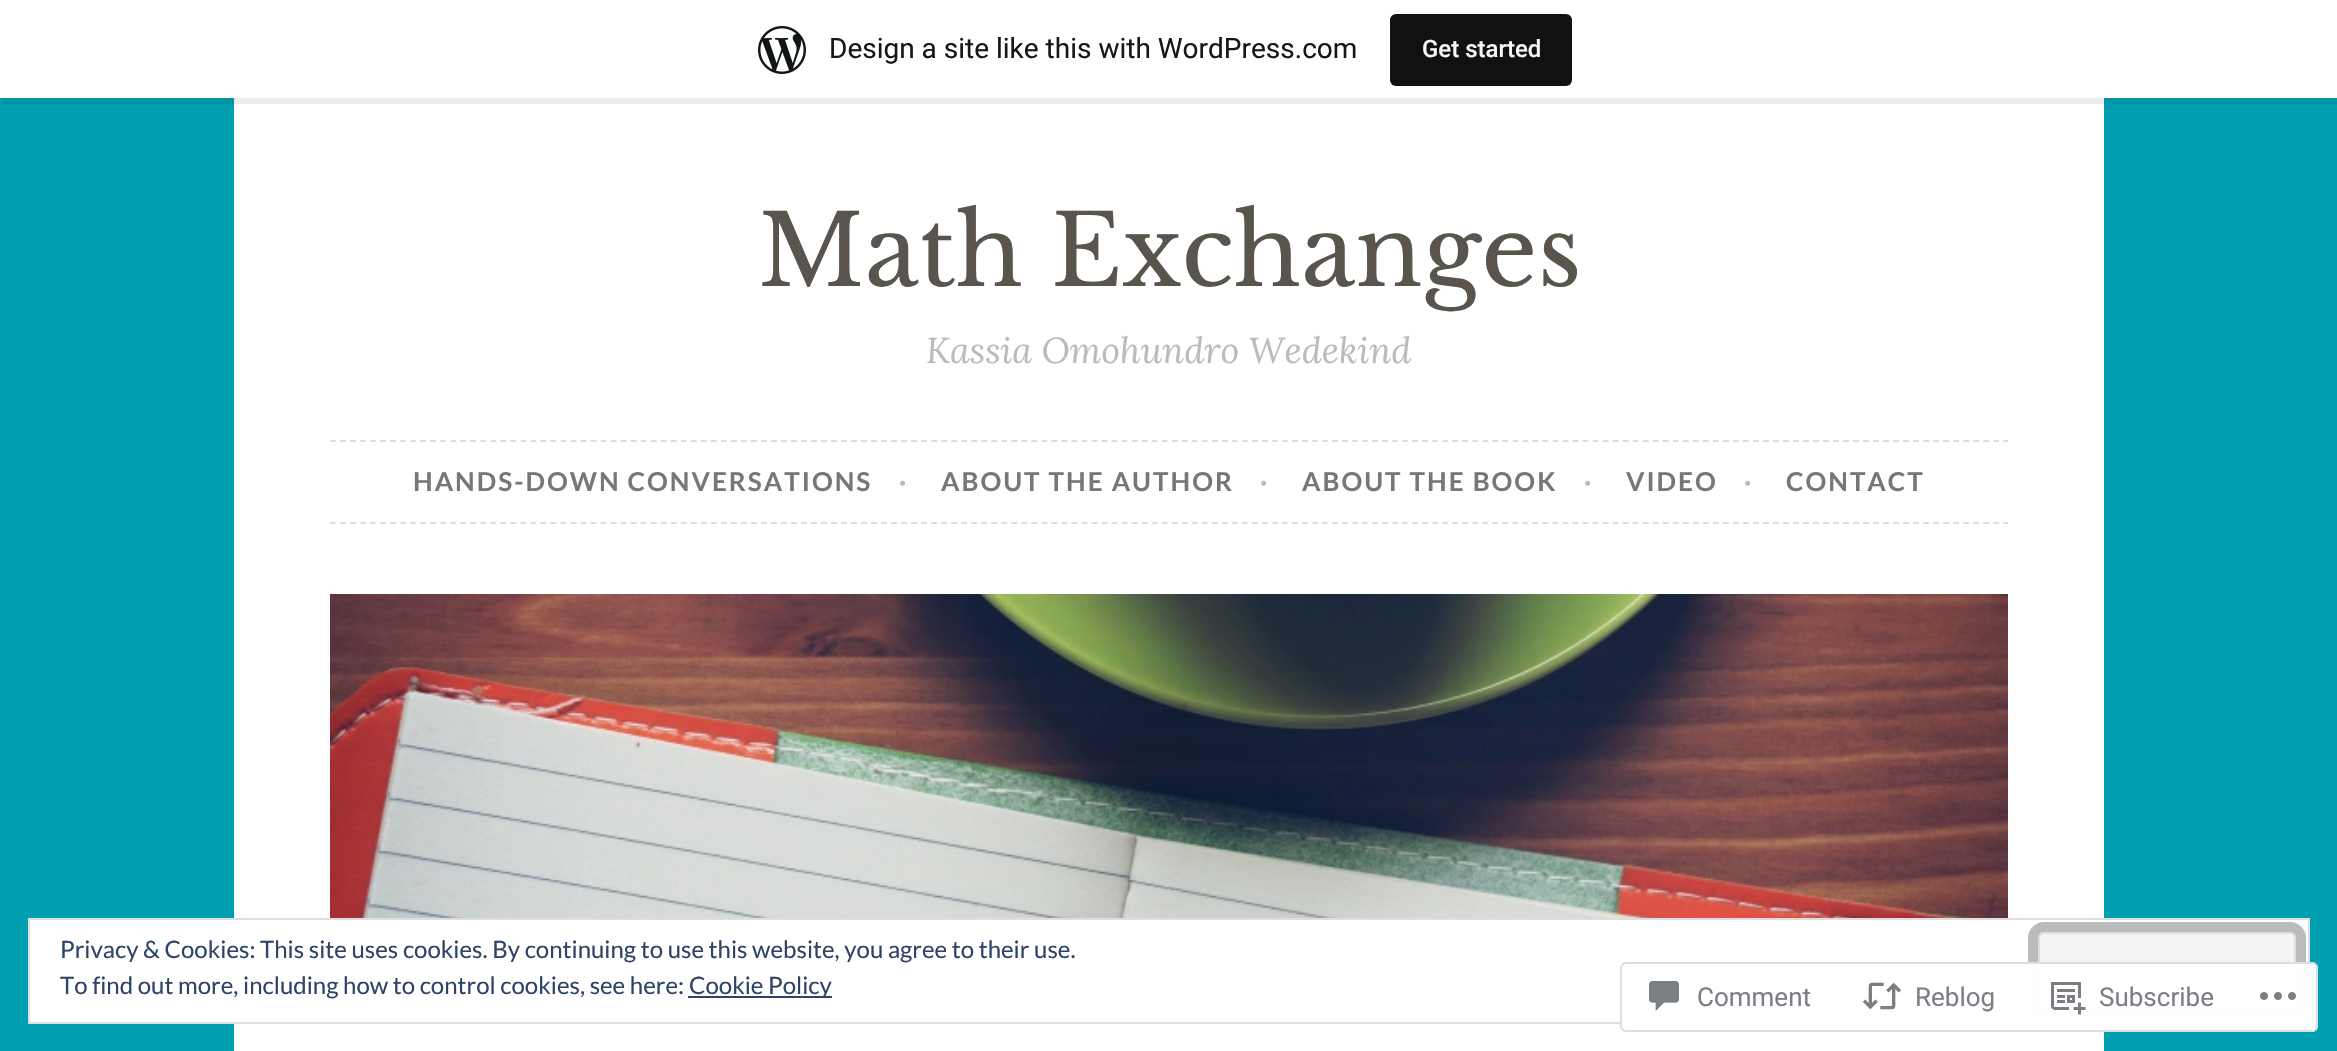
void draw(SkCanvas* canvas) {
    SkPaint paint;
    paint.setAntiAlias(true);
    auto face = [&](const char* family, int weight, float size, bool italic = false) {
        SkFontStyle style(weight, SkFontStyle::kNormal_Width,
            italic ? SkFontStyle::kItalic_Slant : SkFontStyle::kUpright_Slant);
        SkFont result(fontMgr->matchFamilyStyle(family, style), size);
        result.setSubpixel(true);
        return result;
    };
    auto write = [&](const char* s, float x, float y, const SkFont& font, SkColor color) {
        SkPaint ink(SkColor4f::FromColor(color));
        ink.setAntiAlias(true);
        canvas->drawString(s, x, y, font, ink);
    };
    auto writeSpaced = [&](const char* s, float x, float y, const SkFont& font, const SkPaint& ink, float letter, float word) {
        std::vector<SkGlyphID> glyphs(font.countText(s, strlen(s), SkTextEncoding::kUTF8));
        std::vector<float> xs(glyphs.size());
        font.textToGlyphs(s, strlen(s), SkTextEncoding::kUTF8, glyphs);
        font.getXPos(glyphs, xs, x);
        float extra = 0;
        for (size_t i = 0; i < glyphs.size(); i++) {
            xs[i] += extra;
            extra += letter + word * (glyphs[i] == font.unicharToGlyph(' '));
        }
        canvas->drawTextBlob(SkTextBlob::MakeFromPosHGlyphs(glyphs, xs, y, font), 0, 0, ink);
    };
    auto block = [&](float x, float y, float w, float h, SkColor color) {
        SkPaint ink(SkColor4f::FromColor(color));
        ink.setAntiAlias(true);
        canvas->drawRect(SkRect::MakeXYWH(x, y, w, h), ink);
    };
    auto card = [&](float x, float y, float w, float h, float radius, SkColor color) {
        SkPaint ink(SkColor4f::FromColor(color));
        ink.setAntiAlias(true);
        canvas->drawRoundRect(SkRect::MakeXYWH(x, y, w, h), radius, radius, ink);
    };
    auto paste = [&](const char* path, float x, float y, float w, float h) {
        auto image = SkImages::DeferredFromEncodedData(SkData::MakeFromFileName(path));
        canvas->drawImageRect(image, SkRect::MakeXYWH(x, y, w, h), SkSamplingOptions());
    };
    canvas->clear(SkColorSetRGB(0, 160, 176));
    block(234, 98, 1870, 953, SK_ColorWHITE);
    paint.setColor(SkColorSetARGB(20, 0, 0, 0));
    canvas->drawPath(SkPathBuilder().moveTo(2, 98).lineTo(2, 104).lineTo(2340, 104).lineTo(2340, 6).lineTo(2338, 6).lineTo(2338, 98).close().detach(), paint);
    block(0, 0, 2337, 98, SK_ColorWHITE);
    paste("pic1.png", 758, 26, 48, 48);
    auto kFont1 = face("Roboto", 400, 28);
    write("Design a site like this with WordPress.com", 829, 58, kFont1, SkColorSetRGB(23, 23, 23));
    card(1390, 14, 182, 72, 6, SkColorSetRGB(17, 17, 17));
    auto kFont2 = face("Roboto", 500, 24);
    write("Get started", 1422, 57, kFont2, SkColorSetRGB(246, 247, 247));
    auto kFont3 = face("Libre Baskerville", 400, 97.75f);
    write("Math Exchanges", 758, 286, kFont3, SkColorSetRGB(89, 85, 78));
    auto kFont4 = face("Lora", 400, 36, true);
    write("Kassia Omohundro Wedekind", 926, 363, kFont4, SkColorSetRGB(187, 187, 187));
    paint.setStyle(SkPaint::kStroke_Style);
    paint.setStrokeWidth(2);
    paint.setColor(SkColorSetRGB(221, 221, 221));
    paint.setPathEffect(SkDashPathEffect::Make({{6, 4.02f}}, 0));
    canvas->drawPath(SkPathBuilder().moveTo(330, 441).lineTo(2008, 441).detach(), paint);
    paint.setPathEffect(nullptr);
    paint.setPathEffect(SkDashPathEffect::Make({{6, 4.02f}}, 0));
    canvas->drawPath(SkPathBuilder().moveTo(330, 523).lineTo(2008, 523).detach(), paint);
    paint.setPathEffect(nullptr);
    auto kFont5 = face("Lato", 700, 26);
    paint.setStyle(SkPaint::kFill_Style);
    paint.setColor(SkColorSetRGB(119, 119, 119));
    writeSpaced("HANDS-DOWN CONVERSATIONS", 413, 491, kFont5, paint, 2, 0);
    paint.setColor(SkColorSetRGB(187, 187, 187));
    writeSpaced("·", 899, 491, kFont5, paint, 2, 0);
    paint.setColor(SkColorSetRGB(119, 119, 119));
    writeSpaced("ABOUT THE AUTHOR", 941, 491, kFont5, paint, 2, 0);
    paint.setColor(SkColorSetRGB(187, 187, 187));
    writeSpaced("·", 1260, 491, kFont5, paint, 2, 0);
    paint.setColor(SkColorSetRGB(119, 119, 119));
    writeSpaced("ABOUT THE BOOK", 1302, 491, kFont5, paint, 2, 0);
    paint.setColor(SkColorSetRGB(187, 187, 187));
    writeSpaced("·", 1584, 491, kFont5, paint, 2, 0);
    paint.setColor(SkColorSetRGB(119, 119, 119));
    writeSpaced("VIDEO", 1626, 491, kFont5, paint, 2, 0);
    paint.setColor(SkColorSetRGB(187, 187, 187));
    writeSpaced("·", 1744, 491, kFont5, paint, 2, 0);
    paint.setColor(SkColorSetRGB(119, 119, 119));
    writeSpaced("CONTACT", 1786, 491, kFont5, paint, 2, 0);
    paste("pic2.png", 330, 594, 1678, 324);
    paint.setColor(SK_ColorWHITE);
    canvas->drawRect(SkRect::MakeXYWH(29, 919, 2280, 104), paint);
    paint.setStyle(SkPaint::kStroke_Style);
    paint.setColor(SkColorSetRGB(222, 222, 222));
    canvas->drawRect(SkRect::MakeXYWH(29, 919, 2280, 104), paint);
    auto kFont6 = face("Lato", 400, 24);
    write("Privacy & Cookies: This site uses cookies. By continuing to use this website, you agree to their use.", 60, 958, kFont6, SkColorSetRGB(46, 68, 103));
    paint.setStyle(SkPaint::kFill_Style);
    paint.setColor(SkColorSetRGB(243, 243, 243));
    canvas->drawRoundRect(SkRect::MakeXYWH(2039, 933, 256, 76), 5, 5, paint);
    paint.setStyle(SkPaint::kStroke_Style);
    paint.setColor(SkColorSetRGB(222, 222, 222));
    canvas->drawRoundRect(SkRect::MakeXYWH(2039, 933, 256, 76), 5, 5, paint);
    paint.setStrokeWidth(10);
    paint.setColor(SkColorSetRGB(187, 187, 187));
    canvas->drawRoundRect(SkRect::MakeXYWH(2033, 927, 268, 88), 11, 11, paint);
    write("To find out more, including how to control cookies, see here:", 60, 994, kFont6, SkColorSetRGB(46, 68, 103));
    block(688, 996, 144, 2, SkColorSetRGB(46, 68, 103));
    write("Cookie Policy", 689, 994, kFont6, SkColorSetRGB(46, 68, 103));
    card(1620, 962, 698, 70, 6, SkColorSetARGB(250, 255, 255, 255));
    paint.setStrokeWidth(2);
    paint.setColor(SkColorSetARGB(250, 220, 220, 222));
    canvas->drawRoundRect(SkRect::MakeXYWH(1621, 963, 696, 68), 5, 5, paint);
    paste("pic3.png", 1649, 981, 30, 30);
    auto kFont7 = face("Roboto", 400, 26);
    write("Comment", 1697, 1006, kFont7, SkColorSetRGB(123, 127, 133));
    paste("pic4.png", 1862, 982, 40, 28);
    write("Reblog", 1915, 1006, kFont7, SkColorSetRGB(123, 127, 133));
    paste("pic5.png", 2051, 982, 35, 33);
    write("Subscribe", 2099, 1006, kFont7, SkColorSetRGB(123, 127, 133));
    paste("pic6.png", 2260, 992, 36, 8);
}
